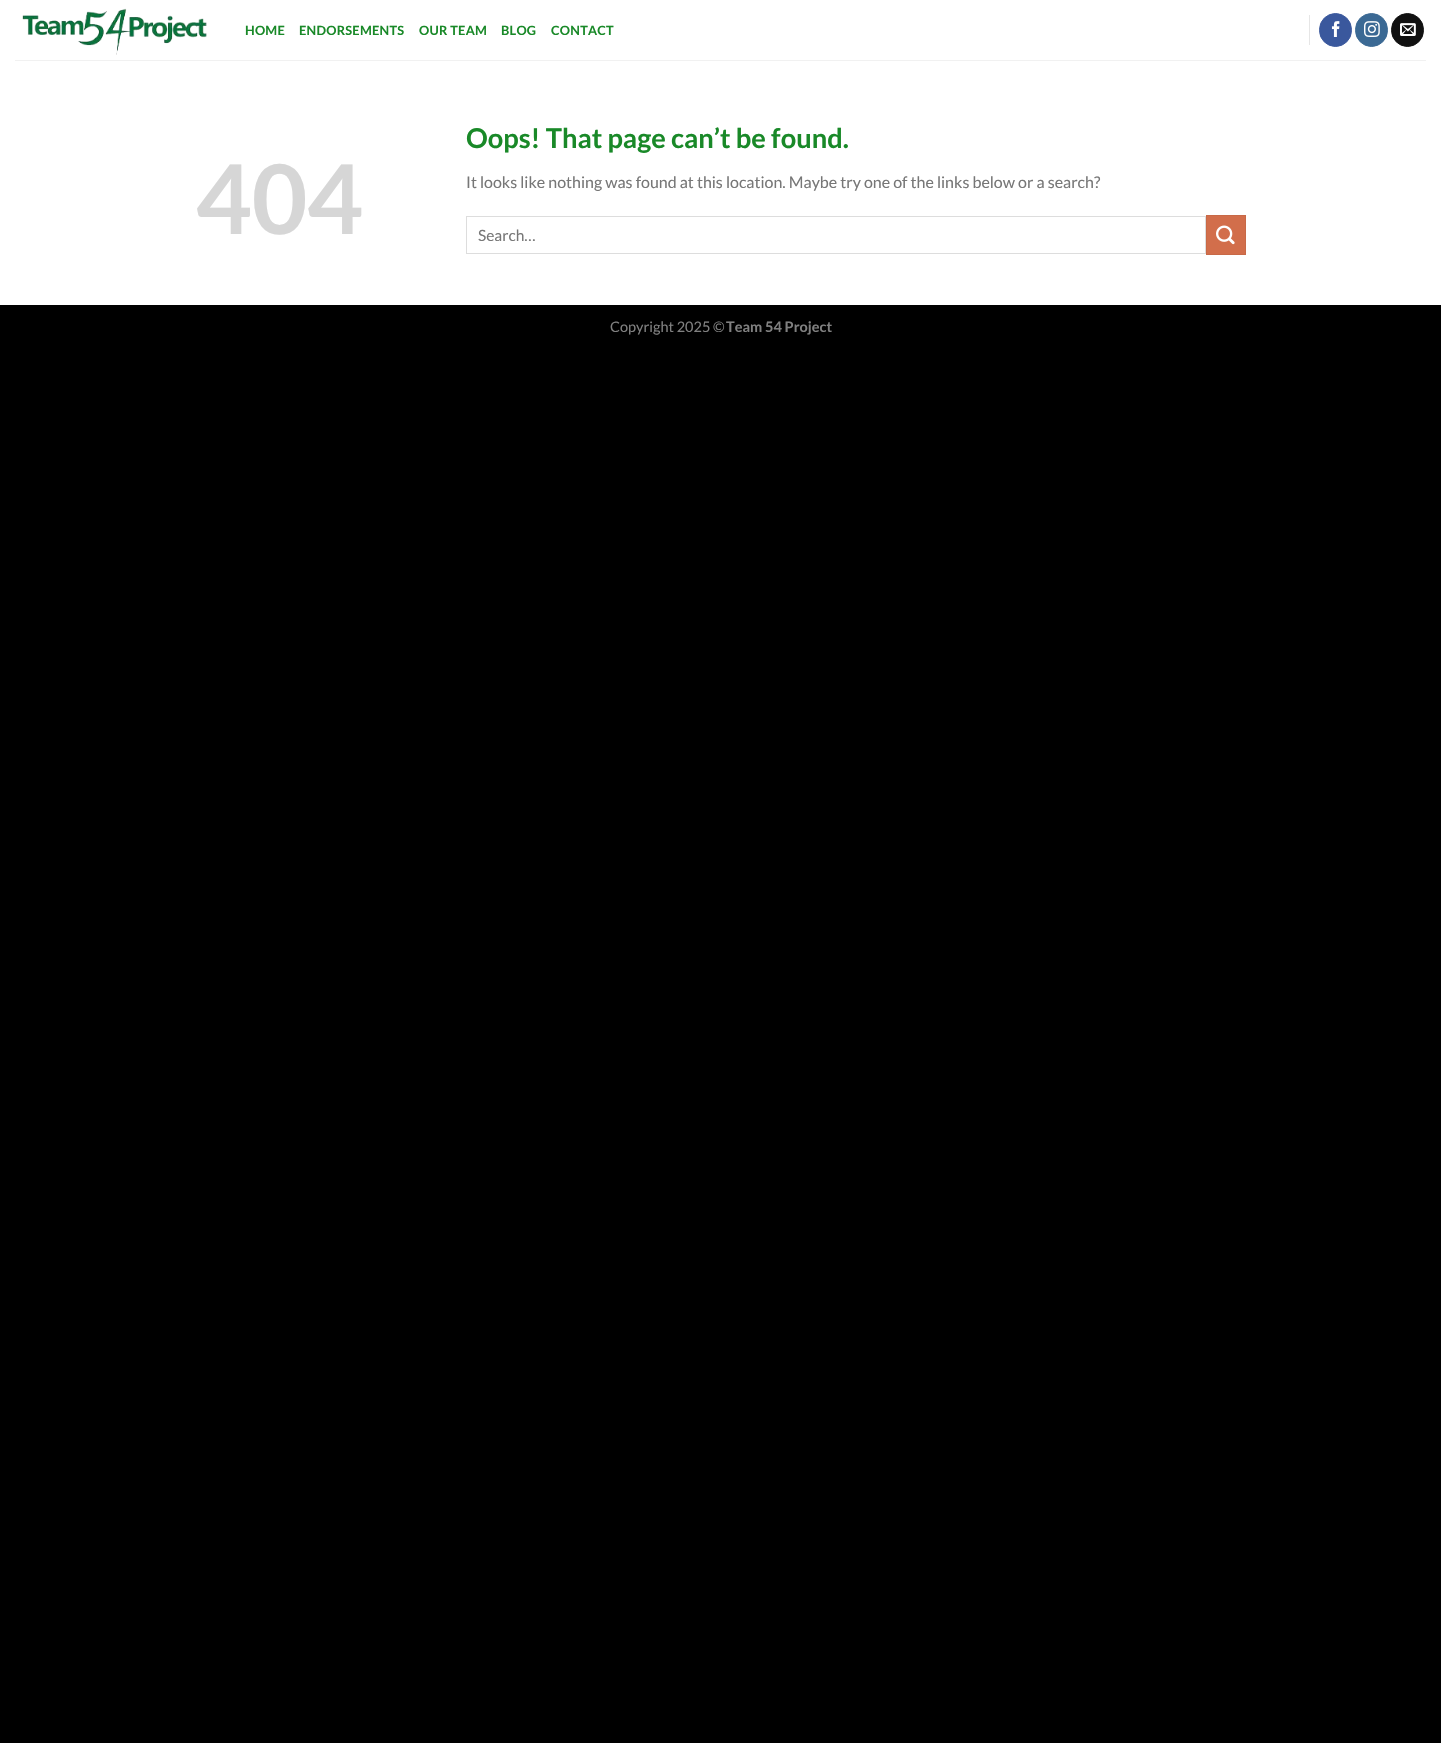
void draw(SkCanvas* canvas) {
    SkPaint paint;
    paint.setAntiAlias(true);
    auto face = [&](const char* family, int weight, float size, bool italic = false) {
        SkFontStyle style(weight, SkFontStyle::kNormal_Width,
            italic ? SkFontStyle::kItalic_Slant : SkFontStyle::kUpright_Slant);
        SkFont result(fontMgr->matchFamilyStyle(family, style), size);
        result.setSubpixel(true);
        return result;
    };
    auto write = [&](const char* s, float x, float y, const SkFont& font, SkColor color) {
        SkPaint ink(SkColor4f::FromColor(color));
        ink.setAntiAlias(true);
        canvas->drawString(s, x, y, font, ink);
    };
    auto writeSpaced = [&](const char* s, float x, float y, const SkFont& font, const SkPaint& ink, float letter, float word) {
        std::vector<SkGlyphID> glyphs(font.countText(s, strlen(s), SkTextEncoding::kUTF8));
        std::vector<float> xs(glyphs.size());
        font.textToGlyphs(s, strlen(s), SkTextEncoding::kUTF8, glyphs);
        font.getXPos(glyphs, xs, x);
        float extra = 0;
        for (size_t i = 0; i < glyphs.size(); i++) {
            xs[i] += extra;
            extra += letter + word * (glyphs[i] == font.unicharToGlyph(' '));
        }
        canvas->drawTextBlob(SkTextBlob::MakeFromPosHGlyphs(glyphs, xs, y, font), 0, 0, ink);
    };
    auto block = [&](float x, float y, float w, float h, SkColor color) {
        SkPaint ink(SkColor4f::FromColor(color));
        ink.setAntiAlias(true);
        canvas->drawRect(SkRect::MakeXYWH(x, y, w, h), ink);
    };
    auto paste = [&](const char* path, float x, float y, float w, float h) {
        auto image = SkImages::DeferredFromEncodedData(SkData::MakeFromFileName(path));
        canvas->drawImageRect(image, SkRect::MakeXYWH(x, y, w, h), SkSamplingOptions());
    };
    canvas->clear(SK_ColorBLACK);
    block(0, 0, 1441, 305, SK_ColorWHITE);
    paste("pic1.png", 22, 8, 185, 47);
    auto kFont1 = face("Lato", 700, 12.75f);
    paint.setColor(SkColorSetRGB(25, 137, 40));
    writeSpaced("HOME", 245, 35, kFont1, paint, 0.25f, 0);
    writeSpaced("ENDORSEMENTS", 299, 35, kFont1, paint, 0.25f, 0);
    writeSpaced("OUR TEAM", 419, 35, kFont1, paint, 0.25f, 0);
    writeSpaced("BLOG", 501, 35, kFont1, paint, 0.25f, 0);
    writeSpaced("CONTACT", 551, 35, kFont1, paint, 0.25f, 0);
    block(1309, 15, 1, 30, SkColorSetRGB(230, 230, 230));
    paint.setColor(SkColorSetRGB(58, 88, 157));
    canvas->drawRoundRect(SkRect::MakeXYWH(1319.5f, 13.5f, 32, 33), 16, 16, paint);
    paint.setStyle(SkPaint::kStroke_Style);
    paint.setStrokeWidth(1);
    canvas->drawRoundRect(SkRect::MakeXYWH(1319.5f, 13.5f, 32, 33), 16, 16, paint);
    paste("pic2.png", 1331, 21, 9, 16);
    paint.setStyle(SkPaint::kFill_Style);
    paint.setColor(SkColorSetRGB(59, 105, 148));
    canvas->drawRoundRect(SkRect::MakeXYWH(1355.5f, 13.5f, 32, 33), 16, 16, paint);
    paint.setStyle(SkPaint::kStroke_Style);
    canvas->drawRoundRect(SkRect::MakeXYWH(1355.5f, 13.5f, 32, 33), 16, 16, paint);
    paste("pic3.png", 1364, 21, 16, 16);
    paint.setStyle(SkPaint::kFill_Style);
    paint.setColor(SkColorSetRGB(17, 17, 17));
    canvas->drawRoundRect(SkRect::MakeXYWH(1391.5f, 13.5f, 32, 33), 16, 16, paint);
    paint.setStyle(SkPaint::kStroke_Style);
    canvas->drawRoundRect(SkRect::MakeXYWH(1391.5f, 13.5f, 32, 33), 16, 16, paint);
    paste("pic4.png", 1400, 23, 16, 13);
    block(15, 60, 1411, 1, SkColorSetRGB(241, 241, 241));
    auto kFont2 = face("Lato", 700, 96);
    write("404", 196, 234, kFont2, SkColorSetRGB(214, 214, 214));
    auto kFont3 = face("Lato", 700, 27.25f);
    write("Oops! That page can’t be found.", 466, 148, kFont3, SkColorSetRGB(25, 137, 40));
    auto kFont4 = face("Lato", 400, 16);
    write("It looks like nothing was found at this location. Maybe try one of the links below or a search?", 466, 188, kFont4, SkColorSetRGB(119, 119, 119));
    paint.setColor(SkColorSetRGB(221, 221, 221));
    canvas->drawRect(SkRect::MakeXYWH(466.5f, 216.5f, 739, 37), paint);
    auto kFont5 = face("Lato", 400, 15.5f);
    write("Search…", 478, 241, kFont5, SkColorSetRGB(119, 119, 119));
    paint.setStyle(SkPaint::kFill_Style);
    paint.setColor(SkColorSetRGB(210, 110, 75));
    canvas->drawRect(SkRect::MakeXYWH(1206.5f, 215.5f, 39, 39), paint);
    paint.setStyle(SkPaint::kStroke_Style);
    paint.setColor(SkColorSetRGB(200, 105, 71));
    canvas->drawRect(SkRect::MakeXYWH(1206.5f, 215.5f, 39, 39), paint);
    paste("pic5.png", 1216, 225, 19, 20);
    auto kFont6 = face("Lato", 400, 14.5f);
    write("Copyright 2025 ©", 610, 332, kFont6, SkColorSetRGB(128, 128, 128));
    auto kFont7 = face("Lato", 700, 14.5f);
    write("Team 54 Project", 726, 332, kFont7, SkColorSetRGB(128, 128, 128));
}
